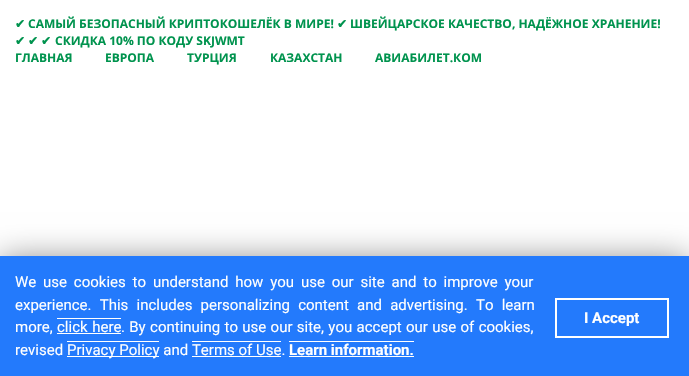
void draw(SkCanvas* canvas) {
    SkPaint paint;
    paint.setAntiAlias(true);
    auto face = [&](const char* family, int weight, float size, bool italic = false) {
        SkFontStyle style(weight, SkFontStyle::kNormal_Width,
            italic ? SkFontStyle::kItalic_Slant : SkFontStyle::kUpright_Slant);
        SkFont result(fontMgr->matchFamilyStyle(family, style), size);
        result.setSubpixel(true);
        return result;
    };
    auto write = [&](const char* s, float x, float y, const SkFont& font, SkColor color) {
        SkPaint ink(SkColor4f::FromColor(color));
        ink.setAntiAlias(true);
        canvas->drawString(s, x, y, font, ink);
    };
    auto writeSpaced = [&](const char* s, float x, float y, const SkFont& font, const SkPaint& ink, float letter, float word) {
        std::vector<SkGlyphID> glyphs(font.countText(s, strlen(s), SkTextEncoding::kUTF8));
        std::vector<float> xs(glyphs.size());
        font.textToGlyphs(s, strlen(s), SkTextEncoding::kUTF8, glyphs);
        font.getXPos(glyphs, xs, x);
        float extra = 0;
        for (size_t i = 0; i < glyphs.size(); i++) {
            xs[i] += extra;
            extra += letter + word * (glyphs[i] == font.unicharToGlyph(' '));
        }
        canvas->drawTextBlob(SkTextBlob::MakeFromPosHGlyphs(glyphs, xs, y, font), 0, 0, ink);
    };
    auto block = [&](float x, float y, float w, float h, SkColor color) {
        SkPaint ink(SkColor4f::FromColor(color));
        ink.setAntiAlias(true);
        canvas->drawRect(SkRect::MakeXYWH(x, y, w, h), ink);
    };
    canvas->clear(SK_ColorWHITE);
    auto kFont1 = face("DejaVu Sans", 700, 12);
    write("✔", 15, 28, kFont1, SkColorSetRGB(0, 147, 78));
    auto kFont2 = face("Open Sans", 700, 12);
    write("САМЫЙ БЕЗОПАСНЫЙ КРИПТОКОШЕЛЁК В МИРЕ!", 28, 28, kFont2, SkColorSetRGB(0, 147, 78));
    write("✔", 337, 28, kFont1, SkColorSetRGB(0, 147, 78));
    write("ШВЕЙЦАРСКОЕ КАЧЕСТВО, НАДЁЖНОЕ ХРАНЕНИЕ!", 350, 28, kFont2, SkColorSetRGB(0, 147, 78));
    write("✔", 15, 45, kFont1, SkColorSetRGB(0, 147, 78));
    write("✔", 28, 45, kFont1, SkColorSetRGB(0, 147, 78));
    write("✔", 41, 45, kFont1, SkColorSetRGB(0, 147, 78));
    write("СКИДКА 10% ПО КОДУ SKJWMT", 55, 45, kFont2, SkColorSetRGB(0, 147, 78));
    write("ГЛАВНАЯ", 15, 62, kFont2, SkColorSetRGB(0, 147, 78));
    write("ЕВРОПА", 105, 62, kFont2, SkColorSetRGB(0, 147, 78));
    write("ТУРЦИЯ", 187, 62, kFont2, SkColorSetRGB(0, 147, 78));
    write("КАЗАХСТАН", 270, 62, kFont2, SkColorSetRGB(0, 147, 78));
    write("АВИАБИЛЕТ.КОМ", 375, 62, kFont2, SkColorSetRGB(0, 147, 78));
    paint.setColor(SkColorSetARGB(128, 0, 0, 0));
    paint.setMaskFilter(SkMaskFilter::MakeBlur(kNormal_SkBlurStyle, 16));
    canvas->drawRect(SkRect::MakeXYWH(0, 260, 689, 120), paint);
    paint.setMaskFilter(nullptr);
    block(0, 256, 689, 120, SkColorSetRGB(35, 122, 252));
    auto kFont3 = face("Roboto", 400, 15);
    paint.setColor(SK_ColorWHITE);
    writeSpaced("We use cookies to understand how you use our site and to improve your", 15, 287, kFont3, paint, 0, 3.1f);
    writeSpaced("experience. This includes personalizing content and advertising. To learn", 15, 310, kFont3, paint, 0, 4.5f);
    write("more,", 15, 332, kFont3, SK_ColorWHITE);
    writeSpaced("click here", 57, 332, kFont3, paint, 0, 1);
    block(57, 333, 64, 1, SK_ColorWHITE);
    block(57, 318, 64, 1, SK_ColorWHITE);
    writeSpaced(". By continuing to use our site, you accept our use of cookies,", 121, 332, kFont3, paint, 0, 0.6f);
    block(192, 341, 89, 1, SK_ColorWHITE);
    write("revised", 15, 355, kFont3, SK_ColorWHITE);
    block(67, 356, 92, 1, SK_ColorWHITE);
    write("Privacy Policy and Terms of Use.", 67, 355, kFont3, SK_ColorWHITE);
    block(67, 341, 92, 1, SK_ColorWHITE);
    auto kFont4 = face("Roboto", 700, 15);
    write("Learn information.", 289, 355, kFont4, SK_ColorWHITE);
    block(289, 356, 125, 1, SK_ColorWHITE);
    block(289, 341, 125, 1, SK_ColorWHITE);
    block(192, 356, 89, 1, SK_ColorWHITE);
    paint.setStyle(SkPaint::kStroke_Style);
    paint.setStrokeWidth(2);
    canvas->drawRect(SkRect::MakeXYWH(556, 299, 112, 38), paint);
    write("I Accept", 584, 323, kFont4, SK_ColorWHITE);
}
